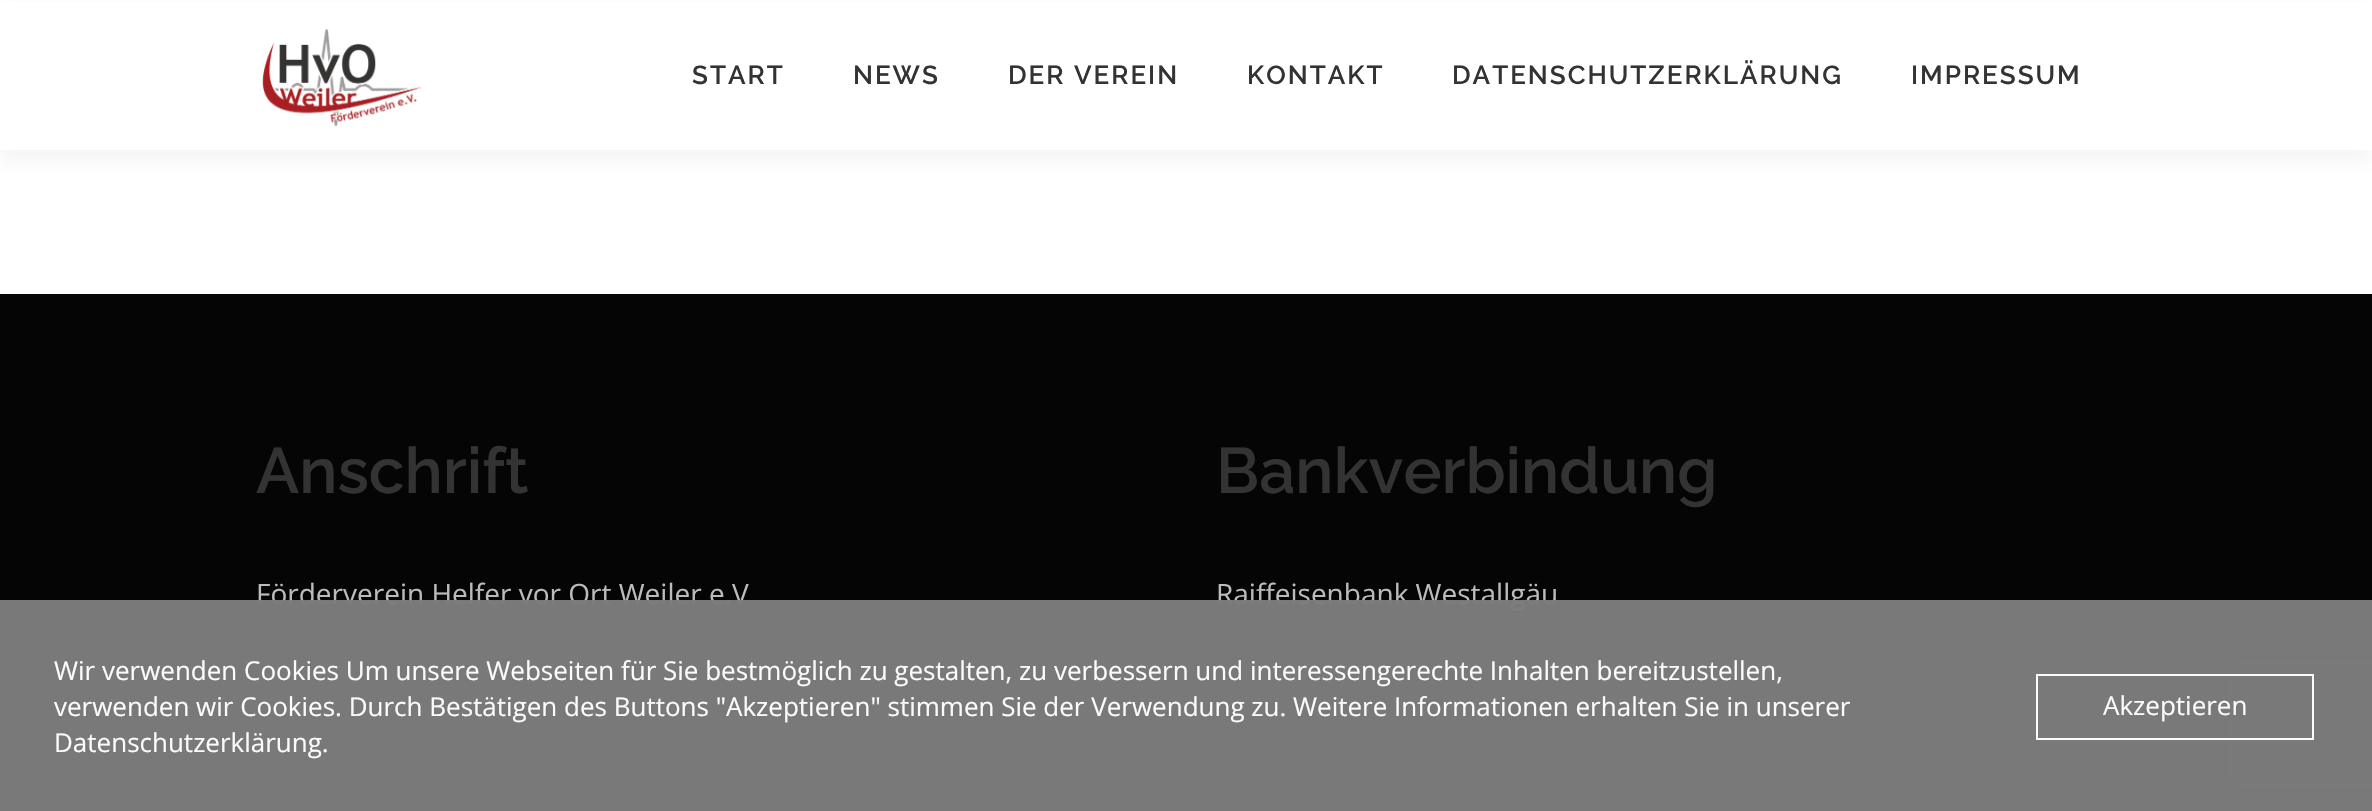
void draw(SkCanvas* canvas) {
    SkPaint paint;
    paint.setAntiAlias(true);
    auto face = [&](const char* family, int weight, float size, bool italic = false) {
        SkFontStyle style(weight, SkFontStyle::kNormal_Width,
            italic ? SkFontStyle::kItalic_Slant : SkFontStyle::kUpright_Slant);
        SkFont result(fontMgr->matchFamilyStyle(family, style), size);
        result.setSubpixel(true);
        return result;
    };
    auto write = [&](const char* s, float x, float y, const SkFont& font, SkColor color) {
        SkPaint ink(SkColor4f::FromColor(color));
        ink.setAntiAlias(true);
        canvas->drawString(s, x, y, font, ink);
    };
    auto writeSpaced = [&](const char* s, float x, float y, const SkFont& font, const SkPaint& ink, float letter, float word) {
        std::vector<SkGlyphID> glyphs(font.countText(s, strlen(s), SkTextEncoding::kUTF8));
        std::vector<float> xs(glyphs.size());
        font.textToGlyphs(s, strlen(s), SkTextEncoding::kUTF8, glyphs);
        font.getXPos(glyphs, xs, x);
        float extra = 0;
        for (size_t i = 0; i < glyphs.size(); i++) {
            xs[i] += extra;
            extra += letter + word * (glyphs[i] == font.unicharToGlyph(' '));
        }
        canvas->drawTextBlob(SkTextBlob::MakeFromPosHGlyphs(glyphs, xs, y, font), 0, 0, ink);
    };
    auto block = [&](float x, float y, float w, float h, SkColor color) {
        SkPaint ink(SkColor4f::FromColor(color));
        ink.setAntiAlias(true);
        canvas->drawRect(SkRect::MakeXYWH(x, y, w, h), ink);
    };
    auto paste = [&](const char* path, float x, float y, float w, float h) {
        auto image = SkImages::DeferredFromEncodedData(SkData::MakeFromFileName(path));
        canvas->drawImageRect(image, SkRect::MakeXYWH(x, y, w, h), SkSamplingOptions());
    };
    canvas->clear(SK_ColorWHITE);
    paint.setColor(SkColorSetARGB(15, 50, 50, 50));
    paint.setMaskFilter(SkMaskFilter::MakeBlur(kNormal_SkBlurStyle, 10));
    canvas->drawRect(SkRect::MakeXYWH(0, 10, 2372, 150), paint);
    paint.setMaskFilter(nullptr);
    block(0, 2, 2372, 148, SK_ColorWHITE);
    paste("pic1.png", 262, 29, 159, 98);
    auto kFont1 = face("Raleway", 600, 26);
    paint.setColor(SkColorSetRGB(51, 51, 51));
    writeSpaced("START", 692, 84, kFont1, paint, 2, 0);
    writeSpaced("NEWS", 853, 84, kFont1, paint, 2, 0);
    writeSpaced("DER VEREIN", 1008, 84, kFont1, paint, 2, 0);
    writeSpaced("KONTAKT", 1247, 84, kFont1, paint, 2, 0);
    writeSpaced("DATENSCHUTZERKLÄRUNG", 1452, 84, kFont1, paint, 2, 0);
    writeSpaced("IMPRESSUM", 1911, 84, kFont1, paint, 2, 0);
    block(0, 294, 2372, 517, SkColorSetRGB(5, 5, 5));
    auto kFont2 = face("Raleway", 600, 64);
    write("Anschrift", 256, 493, kFont2, SkColorSetRGB(51, 51, 51));
    auto kFont3 = face("Open Sans", 400, 28);
    write("Förderverein Helfer vor Ort Weiler e.V", 256, 604, kFont3, SkColorSetRGB(187, 187, 187));
    write("Bankverbindung", 1216, 493, kFont2, SkColorSetRGB(51, 51, 51));
    write("Raiffeisenbank Westallgäu", 1216, 604, kFont3, SkColorSetRGB(187, 187, 187));
    canvas->save();
    canvas->clipPath(SkPathBuilder(SkPathFillType::kEvenOdd).moveTo(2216, 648).lineTo(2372, 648).lineTo(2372, 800).lineTo(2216, 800).close().moveTo(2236, 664).lineTo(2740, 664).cubicTo(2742, 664, 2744, 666, 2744, 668).lineTo(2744, 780).cubicTo(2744, 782, 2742, 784, 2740, 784).lineTo(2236, 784).cubicTo(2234, 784, 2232, 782, 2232, 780).lineTo(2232, 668).cubicTo(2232, 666, 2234, 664, 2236, 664).close().detach(), true);
    paint.setColor(SkColorSetRGB(128, 128, 128));
    paint.setMaskFilter(SkMaskFilter::MakeBlur(kNormal_SkBlurStyle, 5));
    canvas->drawRoundRect(SkRect::MakeXYWH(2232, 664, 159, 120), 4, 4, paint);
    paint.setMaskFilter(nullptr);
    canvas->restore();
    block(0, 600, 2372, 211, SkColorSetARGB(247, 124, 124, 124));
    auto kFont4 = face("Open Sans", 400, 26);
    write("Wir verwenden Cookies Um unsere Webseiten für Sie bestmöglich zu gestalten, zu verbessern und interessengerechte Inhalten bereitzustellen,", 54, 680, kFont4, SkColorSetRGB(251, 251, 251));
    write("verwenden wir Cookies. Durch Bestätigen des Buttons \"Akzeptieren\" stimmen Sie der Verwendung zu. Weitere Informationen erhalten Sie in unserer", 54, 716, kFont4, SkColorSetRGB(251, 251, 251));
    write("Datenschutzerklärung.", 54, 752, kFont4, SkColorSetRGB(251, 251, 251));
    paint.setStyle(SkPaint::kStroke_Style);
    paint.setStrokeWidth(2);
    paint.setColor(SkColorSetRGB(251, 251, 251));
    canvas->drawRect(SkRect::MakeXYWH(2037, 675, 276, 64), paint);
    write("Akzeptieren", 2103, 715, kFont4, SkColorSetRGB(251, 251, 251));
}
